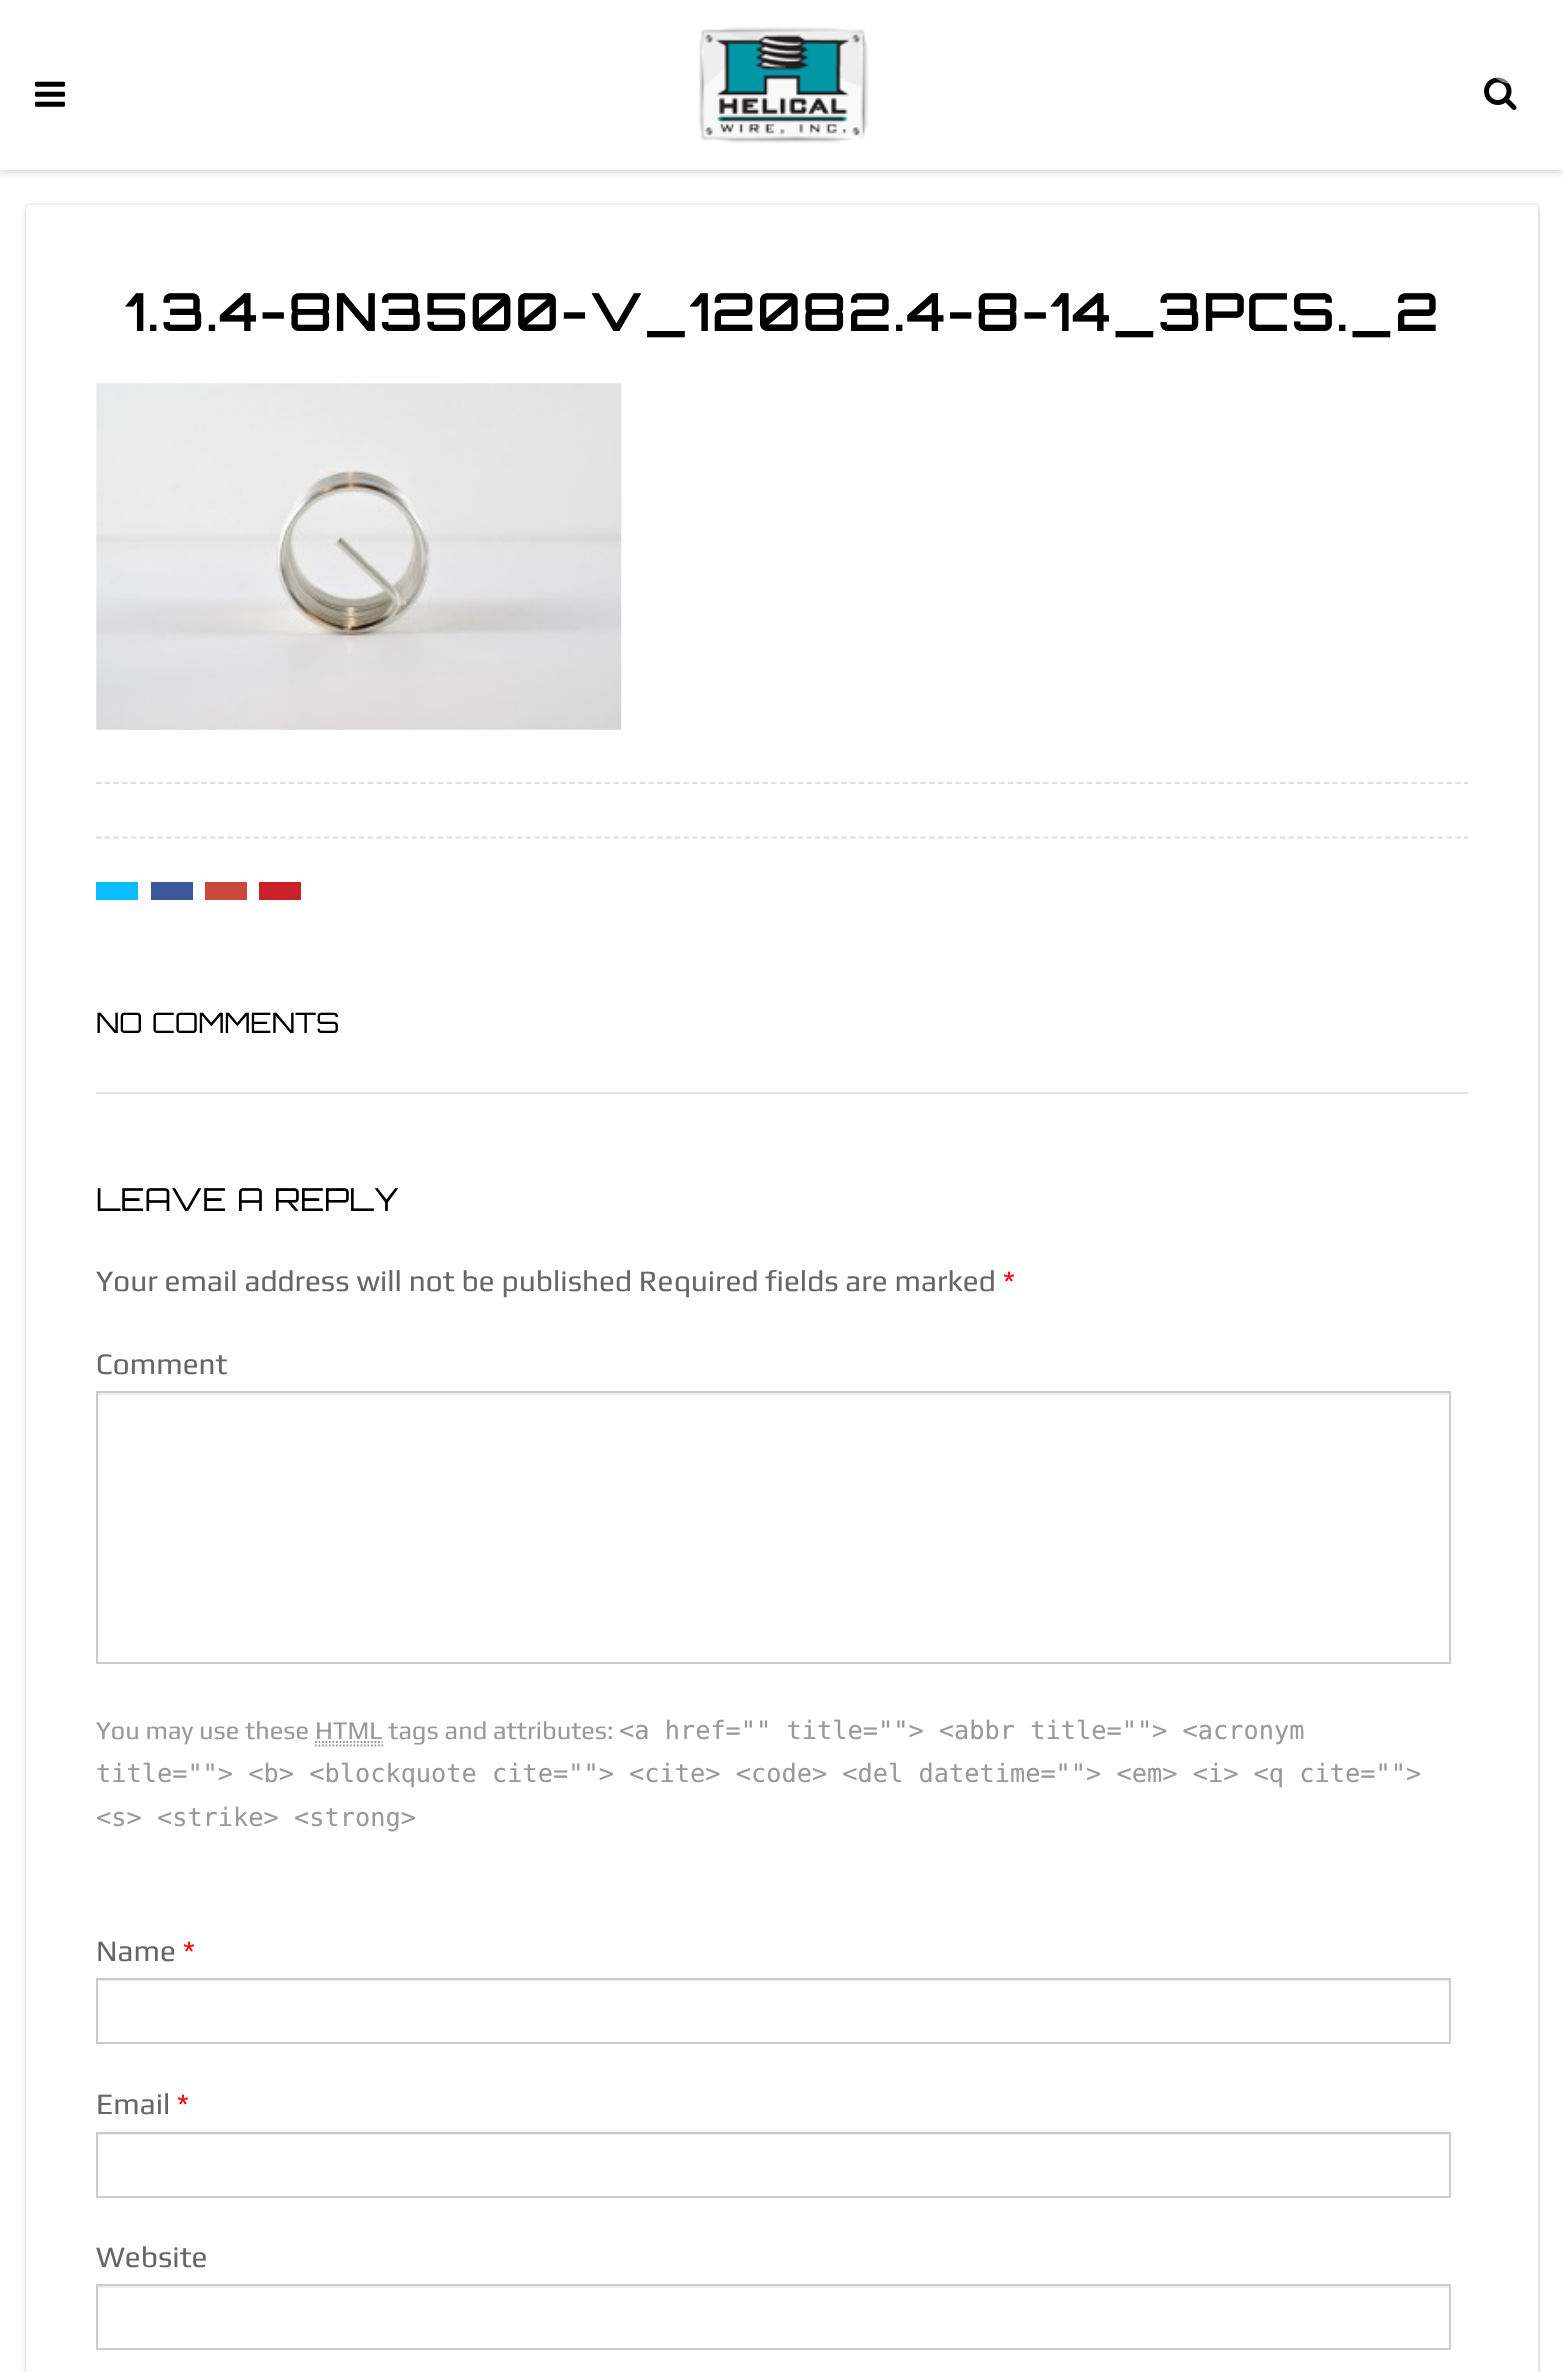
void draw(SkCanvas* canvas) {
    SkPaint paint;
    paint.setAntiAlias(true);
    auto face = [&](const char* family, int weight, float size, bool italic = false) {
        SkFontStyle style(weight, SkFontStyle::kNormal_Width,
            italic ? SkFontStyle::kItalic_Slant : SkFontStyle::kUpright_Slant);
        SkFont result(fontMgr->matchFamilyStyle(family, style), size);
        result.setSubpixel(true);
        return result;
    };
    auto write = [&](const char* s, float x, float y, const SkFont& font, SkColor color) {
        SkPaint ink(SkColor4f::FromColor(color));
        ink.setAntiAlias(true);
        canvas->drawString(s, x, y, font, ink);
    };
    auto writeSpaced = [&](const char* s, float x, float y, const SkFont& font, const SkPaint& ink, float letter, float word) {
        std::vector<SkGlyphID> glyphs(font.countText(s, strlen(s), SkTextEncoding::kUTF8));
        std::vector<float> xs(glyphs.size());
        font.textToGlyphs(s, strlen(s), SkTextEncoding::kUTF8, glyphs);
        font.getXPos(glyphs, xs, x);
        float extra = 0;
        for (size_t i = 0; i < glyphs.size(); i++) {
            xs[i] += extra;
            extra += letter + word * (glyphs[i] == font.unicharToGlyph(' '));
        }
        canvas->drawTextBlob(SkTextBlob::MakeFromPosHGlyphs(glyphs, xs, y, font), 0, 0, ink);
    };
    auto block = [&](float x, float y, float w, float h, SkColor color) {
        SkPaint ink(SkColor4f::FromColor(color));
        ink.setAntiAlias(true);
        canvas->drawRect(SkRect::MakeXYWH(x, y, w, h), ink);
    };
    auto card = [&](float x, float y, float w, float h, float radius, SkColor color) {
        SkPaint ink(SkColor4f::FromColor(color));
        ink.setAntiAlias(true);
        canvas->drawRoundRect(SkRect::MakeXYWH(x, y, w, h), radius, radius, ink);
    };
    auto paste = [&](const char* path, float x, float y, float w, float h) {
        auto image = SkImages::DeferredFromEncodedData(SkData::MakeFromFileName(path));
        canvas->drawImageRect(image, SkRect::MakeXYWH(x, y, w, h), SkSamplingOptions());
    };
    canvas->clear(SK_ColorWHITE);
    paint.setColor(SkColorSetARGB(64, 0, 0, 0));
    paint.setMaskFilter(SkMaskFilter::MakeBlur(kNormal_SkBlurStyle, 4.5f));
    canvas->drawRect(SkRect::MakeXYWH(0, 0, 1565, 170), paint);
    paint.setMaskFilter(nullptr);
    block(0, 0, 1563, 170, SK_ColorWHITE);
    paste("pic3.png", 1484, 77, 33, 33);
    paint.setColor(SkColorSetARGB(128, 255, 255, 255));
    canvas->drawCircle(1514, 51, 33, paint);
    paste("pic1.png", 35, 81, 30, 26);
    paste("pic2.png", 698, 27, 171, 117);
    paint.setStyle(SkPaint::kStroke_Style);
    paint.setStrokeWidth(2);
    paint.setColor(SkColorSetRGB(242, 242, 242));
    canvas->drawRoundRect(SkRect::MakeXYWH(26, 204, 1513, 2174), 4, 4, paint);
    paint.setStyle(SkPaint::kFill_Style);
    paint.setColor(SkColorSetARGB(38, 0, 0, 0));
    paint.setMaskFilter(SkMaskFilter::MakeBlur(kNormal_SkBlurStyle, 2.5f));
    canvas->drawRoundRect(SkRect::MakeXYWH(26, 208, 1512, 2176), 4, 4, paint);
    paint.setMaskFilter(nullptr);
    card(26, 205, 1512, 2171, 4, SK_ColorWHITE);
    auto kFont1 = face("Orbitron", 600, 52.5f);
    paint.setColor(SK_ColorBLACK);
    writeSpaced("1.3.4-8N3500-V_12082.4-8-14_3PCS._2", 125, 331, kFont1, paint, 1.75f, 0);
    paste("pic4.png", 96, 383, 526, 347);
    paint.setStyle(SkPaint::kStroke_Style);
    paint.setStrokeWidth(1.8f);
    paint.setColor(SkColorSetRGB(221, 221, 221));
    paint.setPathEffect(SkDashPathEffect::Make({{5.25f, 3.52f}}, 0));
    canvas->drawPath(SkPathBuilder().moveTo(96, 783).lineTo(1468, 783).detach(), paint);
    paint.setPathEffect(nullptr);
    paint.setPathEffect(SkDashPathEffect::Make({{5.25f, 3.52f}}, 0));
    canvas->drawPath(SkPathBuilder().moveTo(96, 837.5f).lineTo(1468, 837.5f).detach(), paint);
    paint.setPathEffect(nullptr);
    block(96, 882, 42, 18, SkColorSetRGB(11, 188, 255));
    block(151, 882, 42, 18, SkColorSetRGB(59, 89, 153));
    block(205, 882, 42, 18, SkColorSetRGB(205, 72, 60));
    block(259, 882, 42, 18, SkColorSetRGB(202, 33, 40));
    auto kFont2 = face("Orbitron", 400, 28);
    paint.setStyle(SkPaint::kFill_Style);
    paint.setColor(SK_ColorBLACK);
    writeSpaced("NO COMMENTS", 96, 1033, kFont2, paint, 0, 2);
    block(96, 1092, 1372, 2, SkColorSetRGB(226, 226, 226));
    auto kFont3 = face("Orbitron", 400, 31.5f);
    writeSpaced("LEAVE A REPLY", 96, 1211, kFont3, paint, 0, 2);
    auto kFont4 = face("Play", 400, 29.75f);
    write("Your email address will not be published Required fields are marked", 96, 1291, kFont4, SkColorSetRGB(102, 102, 102));
    write("*", 1003, 1291, kFont4, SkColorSetRGB(255, 0, 0));
    write("Comment", 96, 1374, kFont4, SkColorSetRGB(102, 102, 102));
    block(98, 1393, 1351, 2, SkColorSetRGB(236, 236, 236));
    paint.setStyle(SkPaint::kStroke_Style);
    paint.setStrokeWidth(2);
    paint.setColor(SkColorSetRGB(204, 204, 204));
    canvas->drawRect(SkRect::MakeXYWH(97, 1392, 1353, 271), paint);
    auto kFont5 = face("Play", 400, 25.3f);
    write("You may use these HTML tags and attributes:", 96, 1739, kFont5, SkColorSetRGB(153, 153, 153));
    auto kFont6 = face("DejaVu Sans Mono", 400, 25.3f);
    write("<a href=\"\" title=\"\"> <abbr title=\"\"> <acronym", 619, 1739, kFont6, SkColorSetRGB(153, 153, 153));
    paint.setStrokeWidth(1.8f);
    paint.setColor(SkColorSetRGB(153, 153, 153));
    paint.setPathEffect(SkDashPathEffect::Make({{1.75f, 1.75f}}, 0));
    canvas->drawPath(SkPathBuilder().moveTo(315, 1742).lineTo(382.5f, 1742).detach(), paint);
    paint.setPathEffect(nullptr);
    paint.setPathEffect(SkDashPathEffect::Make({{1.75f, 1.75f}}, 0));
    canvas->drawPath(SkPathBuilder().moveTo(315, 1745.5f).lineTo(383, 1745.5f).detach(), paint);
    paint.setPathEffect(nullptr);
    write("title=\"\"> <b> <blockquote cite=\"\"> <cite> <code> <del datetime=\"\"> <em> <i> <q cite=\"\">", 96, 1782, kFont6, SkColorSetRGB(153, 153, 153));
    write("<s> <strike> <strong>", 96, 1826, kFont6, SkColorSetRGB(153, 153, 153));
    write("Name", 96, 1961, kFont4, SkColorSetRGB(102, 102, 102));
    write("*", 183, 1961, kFont4, SkColorSetRGB(255, 0, 0));
    block(98, 1980, 1351, 1, SkColorSetRGB(236, 236, 236));
    paint.setStrokeWidth(2);
    paint.setColor(SkColorSetRGB(204, 204, 204));
    canvas->drawRect(SkRect::MakeXYWH(97, 1979, 1353, 64), paint);
    write("Email", 96, 2114, kFont4, SkColorSetRGB(102, 102, 102));
    write("*", 177, 2114, kFont4, SkColorSetRGB(255, 0, 0));
    block(98, 2134, 1351, 1, SkColorSetRGB(236, 236, 236));
    canvas->drawRect(SkRect::MakeXYWH(97, 2133, 1353, 64), paint);
    write("Website", 96, 2267, kFont4, SkColorSetRGB(102, 102, 102));
    block(98, 2286, 1351, 2, SkColorSetRGB(236, 236, 236));
    canvas->drawRect(SkRect::MakeXYWH(97, 2285, 1353, 64), paint);
}
